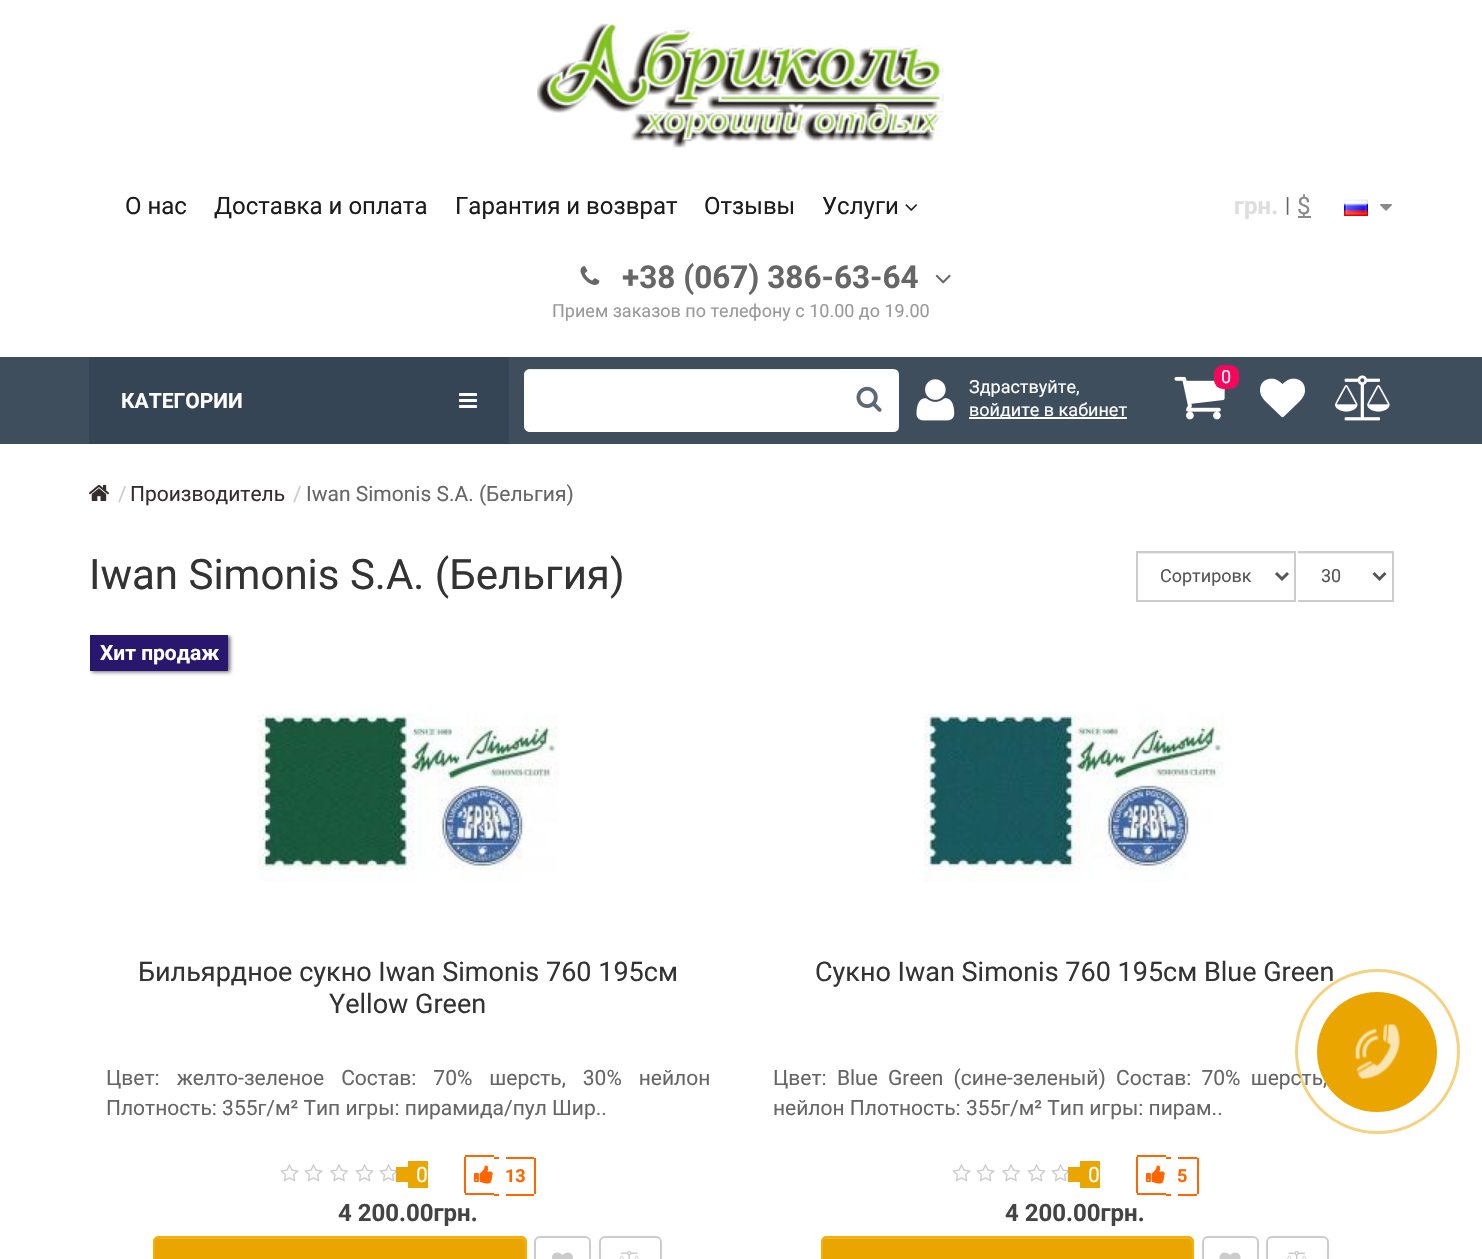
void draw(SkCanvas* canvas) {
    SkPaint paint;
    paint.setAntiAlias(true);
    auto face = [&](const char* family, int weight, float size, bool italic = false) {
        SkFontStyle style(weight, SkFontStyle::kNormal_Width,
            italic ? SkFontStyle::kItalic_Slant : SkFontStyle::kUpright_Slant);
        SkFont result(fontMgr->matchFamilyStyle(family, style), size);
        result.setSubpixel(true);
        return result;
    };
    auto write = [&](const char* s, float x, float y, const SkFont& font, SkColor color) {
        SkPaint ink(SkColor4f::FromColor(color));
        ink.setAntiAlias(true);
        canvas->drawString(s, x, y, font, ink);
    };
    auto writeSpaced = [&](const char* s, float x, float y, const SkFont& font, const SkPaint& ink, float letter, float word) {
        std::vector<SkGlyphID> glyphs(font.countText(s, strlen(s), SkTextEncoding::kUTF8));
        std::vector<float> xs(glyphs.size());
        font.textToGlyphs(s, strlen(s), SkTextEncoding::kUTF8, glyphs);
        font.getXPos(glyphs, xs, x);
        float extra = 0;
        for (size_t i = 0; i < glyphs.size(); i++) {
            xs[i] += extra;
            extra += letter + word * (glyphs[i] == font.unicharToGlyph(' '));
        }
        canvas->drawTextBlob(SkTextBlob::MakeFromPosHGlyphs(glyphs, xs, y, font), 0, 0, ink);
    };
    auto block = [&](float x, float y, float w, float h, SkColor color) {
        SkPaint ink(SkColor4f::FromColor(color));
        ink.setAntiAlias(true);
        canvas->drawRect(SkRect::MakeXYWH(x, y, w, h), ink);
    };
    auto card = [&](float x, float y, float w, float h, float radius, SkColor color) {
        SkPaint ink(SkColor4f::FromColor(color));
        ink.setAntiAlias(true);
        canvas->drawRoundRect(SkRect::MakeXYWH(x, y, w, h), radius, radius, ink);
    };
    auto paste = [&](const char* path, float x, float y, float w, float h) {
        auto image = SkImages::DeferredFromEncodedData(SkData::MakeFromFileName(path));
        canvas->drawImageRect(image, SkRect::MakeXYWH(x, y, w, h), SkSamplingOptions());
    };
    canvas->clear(SK_ColorWHITE);
    paste("pic1.png", 537, 23, 407, 125);
    auto kFont1 = face("Roboto", 400, 24);
    write("О нас", 125, 214, kFont1, SkColorSetRGB(28, 28, 28));
    write("Доставка и оплата", 214, 214, kFont1, SkColorSetRGB(28, 28, 28));
    write("Гарантия и возврат", 455, 214, kFont1, SkColorSetRGB(28, 28, 28));
    write("Отзывы", 704, 214, kFont1, SkColorSetRGB(28, 28, 28));
    write("Услуги", 822, 214, kFont1, SkColorSetRGB(28, 28, 28));
    paste("pic2.png", 905, 204, 12, 7);
    auto kFont2 = face("Roboto", 700, 24);
    write("грн.", 1234, 214, kFont2, SkColorSetRGB(222, 222, 222));
    auto kFont3 = face("Roboto", 400, 21);
    write("|", 1285, 212, kFont3, SkColorSetRGB(102, 102, 102));
    block(1298, 216, 13, 2, SkColorSetRGB(137, 137, 137));
    write("$", 1297, 214, kFont1, SkColorSetRGB(137, 137, 137));
    paste("pic3.png", 1344, 199, 24, 17);
    paste("pic4.png", 1380, 204, 12, 7);
    paste("pic5.png", 580, 266, 20, 19);
    auto kFont4 = face("Roboto", 700, 31.5f);
    write("+38 (067) 386-63-64", 622, 288, kFont4, SkColorSetRGB(102, 102, 102));
    paste("pic6.png", 935, 274, 16, 10);
    auto kFont5 = face("Roboto", 400, 18);
    write("Прием заказов по телефону с 10.00 до 19.00", 552, 317, kFont5, SkColorSetRGB(153, 153, 153));
    block(0, 357, 1482, 87, SkColorSetRGB(63, 78, 93));
    block(89, 357, 420, 87, SkColorSetRGB(54, 69, 85));
    auto kFont6 = face("Roboto", 700, 21);
    write("КАТЕГОРИИ", 121, 408, kFont6, SK_ColorWHITE);
    paste("pic7.png", 459, 393, 18, 15);
    paint.setColor(SK_ColorWHITE);
    canvas->drawPath(SkPathBuilder().moveTo(530, 369).lineTo(840, 369).lineTo(840, 432).lineTo(530, 432).cubicTo(526.5f, 432, 524, 429.5f, 524, 426).lineTo(524, 375).cubicTo(524, 371.5f, 526.5f, 369, 530, 369).close().detach(), paint);
    paint.setColor(SkColorSetARGB(18, 0, 0, 0));
    canvas->drawPath(SkPathBuilder().moveTo(530, 370).lineTo(840, 370).lineTo(840, 369).lineTo(530, 369).cubicTo(526, 369, 524, 372, 524, 376).cubicTo(524, 373, 526, 370, 530, 370).close().detach(), paint);
    paint.setColor(SK_ColorWHITE);
    canvas->drawPath(SkPathBuilder().moveTo(841, 370).lineTo(893, 370).cubicTo(896, 370, 898, 372, 898, 375).lineTo(898, 426).cubicTo(898, 429, 896, 431, 893, 431).lineTo(841, 431).close().detach(), paint);
    paint.setStyle(SkPaint::kStroke_Style);
    paint.setStrokeWidth(2);
    canvas->drawPath(SkPathBuilder().moveTo(841, 370).lineTo(893, 370).cubicTo(896, 370, 898, 372, 898, 375).lineTo(898, 426).cubicTo(898, 429, 896, 431, 893, 431).lineTo(841, 431).close().detach(), paint);
    paste("pic8.png", 856, 386, 26, 26);
    paste("pic9.png", 916, 379, 39, 42);
    write("Здраствуйте,", 969, 393, kFont5, SK_ColorWHITE);
    block(969, 417, 158, 2, SK_ColorWHITE);
    write("войдите в кабинет", 969, 416, kFont5, SK_ColorWHITE);
    paste("pic10.png", 1174, 376, 51, 44);
    card(1214, 365, 25, 24, 9, SkColorSetRGB(247, 7, 91));
    write("0", 1221, 383, kFont5, SK_ColorWHITE);
    paste("pic11.png", 1260, 378, 45, 40);
    paste("pic12.png", 1335, 375, 55, 46);
    paste("pic13.png", 89, 484, 20, 17);
    write("/", 118, 501, kFont3, SkColorSetRGB(204, 204, 204));
    write("Производитель", 130, 501, kFont3, SkColorSetRGB(54, 45, 46));
    write("/", 293, 501, kFont3, SkColorSetRGB(204, 204, 204));
    write("Iwan Simonis S.A. (Бельгия)", 306, 501, kFont3, SkColorSetRGB(102, 102, 102));
    auto kFont7 = face("Roboto", 400, 42);
    write("Iwan Simonis S.A. (Бельгия)", 89, 589, kFont7, SkColorSetRGB(51, 51, 51));
    block(1137, 553, 158, 1, SkColorSetRGB(236, 236, 236));
    paint.setColor(SkColorSetRGB(204, 204, 204));
    canvas->drawRect(SkRect::MakeXYWH(1137, 552, 158, 49), paint);
    paint.setStrokeWidth(3);
    paint.setColor(SkColorSetRGB(85, 85, 85));
    canvas->drawPath(SkPathBuilder().moveTo(1276, 573).lineTo(1282, 579).lineTo(1288, 573).detach(), paint);
    write("Сортировк", 1160, 582, kFont5, SkColorSetRGB(85, 85, 85));
    block(1298, 553, 94, 1, SkColorSetRGB(236, 236, 236));
    block(1296, 551, 98, 2, SkColorSetRGB(204, 204, 204));
    block(1392, 551, 2, 51, SkColorSetRGB(204, 204, 204));
    block(1296, 600, 98, 2, SkColorSetRGB(204, 204, 204));
    block(1296, 551, 2, 51, SK_ColorWHITE);
    canvas->drawPath(SkPathBuilder().moveTo(1373.5f, 573).lineTo(1379.5f, 579).lineTo(1385.5f, 573).detach(), paint);
    canvas->save();
    canvas->clipRect(SkRect::MakeXYWH(1322, 564, 28, 24));
    write("30", 1321, 582, kFont5, SkColorSetRGB(85, 85, 85));
    canvas->restore();
    canvas->save();
    canvas->clipRect(SkRect::MakeXYWH(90, 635, 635, 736));
    paint.setStyle(SkPaint::kFill_Style);
    paint.setColor(SkColorSetARGB(153, 0, 0, 0));
    paint.setMaskFilter(SkMaskFilter::MakeBlur(kNormal_SkBlurStyle, 2));
    canvas->drawRect(SkRect::MakeXYWH(92, 636, 138, 36), paint);
    paint.setMaskFilter(nullptr);
    canvas->restore();
    block(90, 635, 138, 36, SkColorSetRGB(40, 22, 111));
    write("Хит продаж", 100, 660, kFont6, SK_ColorWHITE);
    paste("pic14.png", 258, 713, 300, 169);
    auto kFont8 = face("Roboto", 400, 27);
    write("Бильярдное сукно Iwan Simonis 760 195см", 138, 981, kFont8, SkColorSetRGB(51, 51, 51));
    write("Yellow Green", 329, 1013, kFont8, SkColorSetRGB(51, 51, 51));
    paint.setColor(SkColorSetRGB(102, 102, 102));
    writeSpaced("Цвет: желто-зеленое Состав: 70% шерсть, 30% нейлон", 106, 1085, kFont3, paint, 0, 11.75f);
    write("Плотность: 355г/м² Тип игры: пирамида/пул Шир..", 106, 1115, kFont3, SkColorSetRGB(102, 102, 102));
    paste("pic15.png", 280, 1164, 19, 18);
    paste("pic15.png", 304, 1164, 19, 18);
    paste("pic16.png", 330, 1164, 18, 18);
    paste("pic15.png", 355, 1164, 19, 18);
    paste("pic17.png", 379, 1164, 17, 18);
    block(408, 1161, 20, 27, SkColorSetRGB(234, 165, 0));
    write("0", 416, 1182, kFont3, SK_ColorWHITE);
    block(396, 1167, 12, 15, SkColorSetRGB(234, 165, 0));
    block(465, 1155, 29, 2, SkColorSetRGB(255, 102, 0));
    block(465, 1193, 29, 2, SkColorSetRGB(255, 102, 0));
    block(464, 1157, 2, 36, SkColorSetRGB(255, 102, 0));
    block(494, 1157, 5, 2, SkColorSetRGB(255, 102, 0));
    block(494, 1194, 5, 2, SkColorSetRGB(255, 102, 0));
    block(506, 1157, 28, 2, SkColorSetRGB(255, 102, 0));
    block(534, 1158, 2, 36, SkColorSetRGB(255, 102, 0));
    block(506, 1194, 28, 2, SkColorSetRGB(255, 102, 0));
    paste("pic18.png", 474, 1165, 19, 19);
    auto kFont9 = face("Roboto", 700, 18);
    write("13", 505, 1182, kFont9, SkColorSetRGB(255, 102, 0));
    write("4 200.00грн.", 338, 1221, kFont2, SkColorSetRGB(68, 68, 68));
    card(153, 1236, 374, 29, 6, SkColorSetRGB(234, 165, 0));
    paint.setColor(SkColorSetRGB(238, 183, 51));
    canvas->drawPath(SkPathBuilder().moveTo(159, 1239).lineTo(520, 1239).cubicTo(523, 1239, 525, 1241, 525, 1244).lineTo(525, 1243).cubicTo(525, 1240, 523, 1238, 520, 1238).lineTo(160, 1238).cubicTo(158, 1238, 157, 1239, 156, 1240).close().detach(), paint);
    paint.setStyle(SkPaint::kStroke_Style);
    paint.setStrokeWidth(2);
    paint.setColor(SkColorSetRGB(247, 175, 2));
    canvas->drawRoundRect(SkRect::MakeXYWH(154, 1237, 372, 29), 5, 5, paint);
    paint.setColor(SkColorSetRGB(204, 204, 204));
    canvas->drawRoundRect(SkRect::MakeXYWH(535, 1237, 55, 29), 5, 5, paint);
    paste("pic19.png", 552, 1252, 21, 7);
    canvas->drawRoundRect(SkRect::MakeXYWH(600, 1237, 61, 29), 5, 5, paint);
    paste("pic20.png", 619, 1251, 20, 8);
    paste("pic21.png", 924, 713, 300, 169);
    write("Сукно Iwan Simonis 760 195см Blue Green", 815, 981, kFont8, SkColorSetRGB(51, 51, 51));
    paint.setStyle(SkPaint::kFill_Style);
    paint.setColor(SkColorSetRGB(102, 102, 102));
    writeSpaced("Цвет: Blue Green (сине-зеленый) Состав: 70% шерсть,", 773, 1085, kFont3, paint, 0, 5);
    write("нейлон Плотность: 355г/м² Тип игры: пирам..", 773, 1115, kFont3, SkColorSetRGB(102, 102, 102));
    paste("pic15.png", 952, 1164, 19, 18);
    paste("pic15.png", 976, 1164, 19, 18);
    paste("pic16.png", 1002, 1164, 18, 18);
    paste("pic15.png", 1027, 1164, 19, 18);
    paste("pic17.png", 1051, 1164, 17, 18);
    block(1080, 1161, 20, 27, SkColorSetRGB(234, 165, 0));
    write("0", 1088, 1182, kFont3, SK_ColorWHITE);
    block(1068, 1167, 12, 15, SkColorSetRGB(234, 165, 0));
    block(1137, 1155, 29, 2, SkColorSetRGB(255, 102, 0));
    block(1137, 1193, 29, 2, SkColorSetRGB(255, 102, 0));
    block(1136, 1157, 2, 36, SkColorSetRGB(255, 102, 0));
    block(1166, 1157, 5, 2, SkColorSetRGB(255, 102, 0));
    block(1166, 1194, 5, 2, SkColorSetRGB(255, 102, 0));
    block(1178, 1157, 19, 2, SkColorSetRGB(255, 102, 0));
    block(1197, 1158, 2, 36, SkColorSetRGB(255, 102, 0));
    block(1178, 1194, 19, 2, SkColorSetRGB(255, 102, 0));
    paste("pic18.png", 1146, 1165, 19, 19);
    write("5", 1177, 1182, kFont9, SkColorSetRGB(255, 102, 0));
    write("4 200.00грн.", 1005, 1221, kFont2, SkColorSetRGB(68, 68, 68));
    card(821, 1236, 373, 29, 6, SkColorSetRGB(234, 165, 0));
    paint.setColor(SkColorSetRGB(238, 183, 51));
    canvas->drawPath(SkPathBuilder().moveTo(826, 1239).lineTo(1188, 1239).cubicTo(1190, 1239, 1192, 1241, 1192, 1244).lineTo(1192, 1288).cubicTo(1193, 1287, 1193, 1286, 1193, 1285).lineTo(1193, 1243).cubicTo(1193, 1240, 1191, 1238, 1188, 1238).lineTo(827, 1238).cubicTo(824, 1238, 822, 1240, 822, 1243).lineTo(822, 1244).cubicTo(822, 1241, 824, 1239, 826, 1239).close().detach(), paint);
    paint.setStyle(SkPaint::kStroke_Style);
    paint.setColor(SkColorSetRGB(247, 175, 2));
    canvas->drawRoundRect(SkRect::MakeXYWH(822, 1237, 371, 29), 5, 5, paint);
    paint.setColor(SkColorSetRGB(204, 204, 204));
    canvas->drawRoundRect(SkRect::MakeXYWH(1203, 1237, 55, 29), 5, 5, paint);
    paste("pic22.png", 1219, 1252, 22, 7);
    canvas->drawRoundRect(SkRect::MakeXYWH(1267, 1237, 61, 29), 5, 5, paint);
    paste("pic23.png", 1287, 1251, 20, 8);
    paint.setStrokeWidth(3);
    paint.setColor(SkColorSetARGB(128, 234, 165, 0));
    canvas->drawCircle(1377.5f, 1051.5f, 81, paint);
    paint.setStyle(SkPaint::kFill_Style);
    paint.setColor(SkColorSetRGB(234, 165, 0));
    canvas->drawCircle(1377, 1052, 60, paint);
    paste("pic24.png", 1355, 1024, 45, 55);
}
